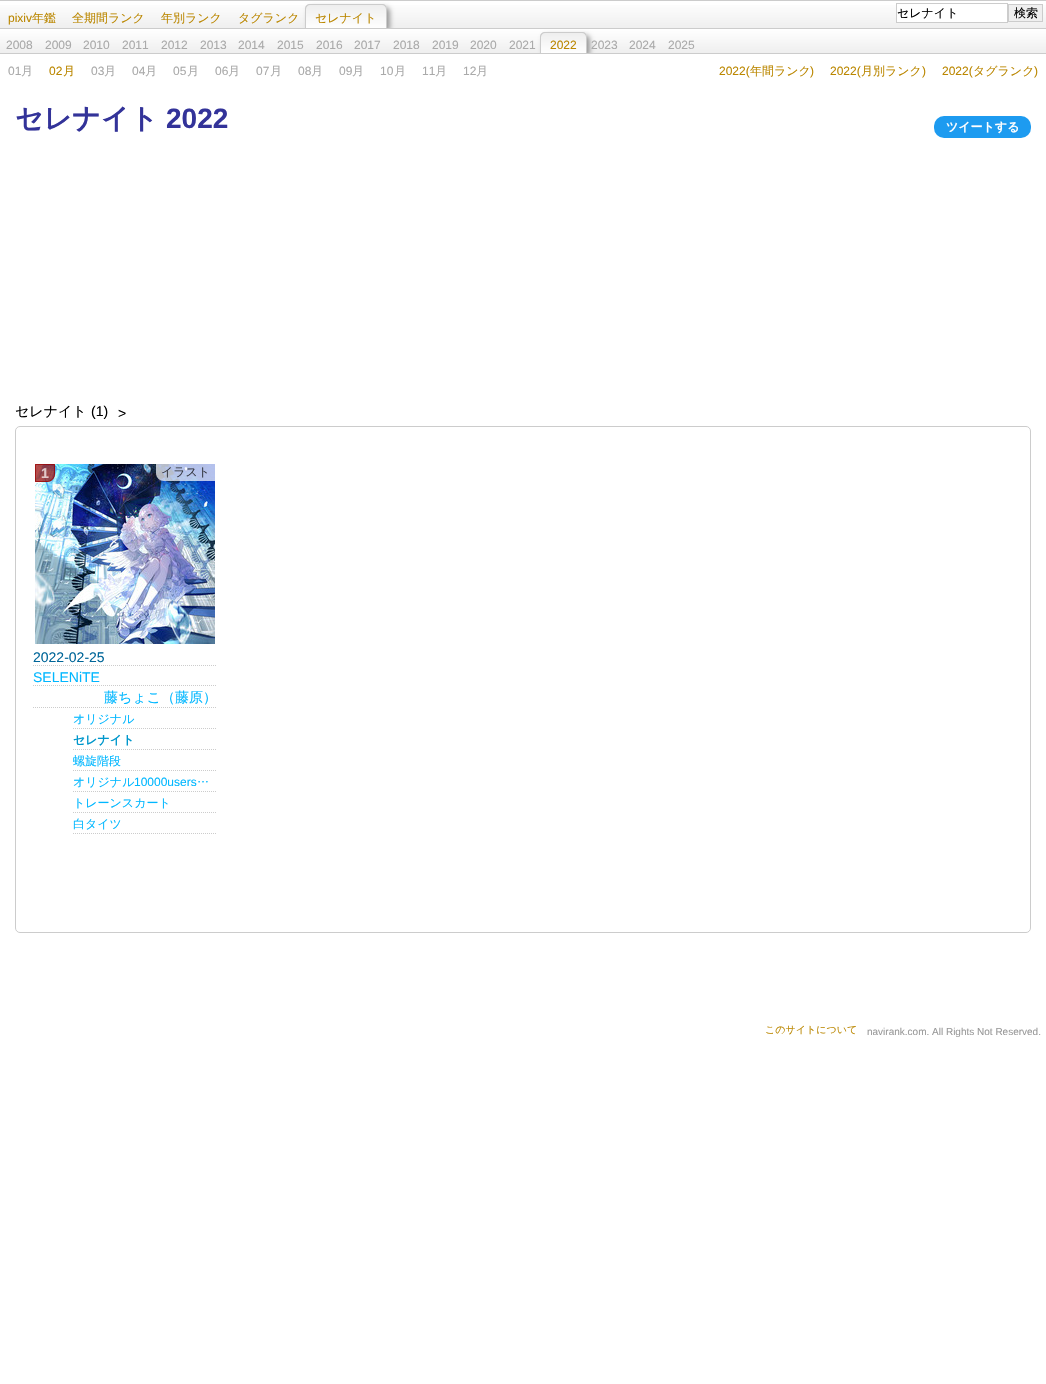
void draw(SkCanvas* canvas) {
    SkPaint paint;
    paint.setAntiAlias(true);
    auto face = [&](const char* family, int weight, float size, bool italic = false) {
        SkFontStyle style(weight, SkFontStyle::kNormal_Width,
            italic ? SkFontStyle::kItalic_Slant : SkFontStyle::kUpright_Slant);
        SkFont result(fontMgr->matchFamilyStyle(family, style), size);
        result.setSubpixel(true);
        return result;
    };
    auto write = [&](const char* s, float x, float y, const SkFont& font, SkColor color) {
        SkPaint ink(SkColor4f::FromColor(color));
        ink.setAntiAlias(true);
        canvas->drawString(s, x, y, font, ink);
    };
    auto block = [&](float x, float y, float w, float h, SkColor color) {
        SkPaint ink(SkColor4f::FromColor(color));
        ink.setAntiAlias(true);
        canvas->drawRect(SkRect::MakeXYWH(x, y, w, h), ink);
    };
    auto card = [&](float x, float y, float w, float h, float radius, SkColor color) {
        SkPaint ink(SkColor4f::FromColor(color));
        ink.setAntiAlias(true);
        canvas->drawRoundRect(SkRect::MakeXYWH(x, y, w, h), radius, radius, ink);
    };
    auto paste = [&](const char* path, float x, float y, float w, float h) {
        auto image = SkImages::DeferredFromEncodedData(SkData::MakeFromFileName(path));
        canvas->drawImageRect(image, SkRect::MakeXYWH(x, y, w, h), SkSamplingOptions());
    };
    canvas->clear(SK_ColorWHITE);
    {
        const SkColor colors[] = {SK_ColorWHITE, SkColorSetRGB(238, 238, 238)};
        const float stops[] = {0, 1};
        const SkPoint ends[] = {{523, 1}, {523, 29}};
        paint.setShader(SkGradientShader::MakeLinear(ends, colors, stops, 2, SkTileMode::kClamp));
        paint.setAlpha(255);
    }
    canvas->drawRect(SkRect::MakeXYWH(0, 5, 1046, 23), paint);
    block(0, 0, 1046, 1, SkColorSetRGB(204, 204, 204));
    auto kFont1 = face("Liberation Sans", 400, 12);
    write("pixiv", 8, 22, kFont1, SkColorSetRGB(187, 135, 0));
    auto kFont2 = face("WenQuanYi Zen Hei", 500, 12);
    write("年鑑", 32, 22, kFont2, SkColorSetRGB(187, 135, 0));
    write("全期間ランク", 72, 22, kFont2, SkColorSetRGB(187, 135, 0));
    write("年別ランク", 161, 22, kFont2, SkColorSetRGB(187, 135, 0));
    write("タグランク", 238, 22, kFont2, SkColorSetRGB(187, 135, 0));
    paint.setShader(nullptr);
    paint.setColor(SkColorSetRGB(153, 153, 153));
    paint.setMaskFilter(SkMaskFilter::MakeBlur(kNormal_SkBlurStyle, 2.5f));
    canvas->drawRoundRect(SkRect::MakeXYWH(308, 7, 82, 25), 5, 5, paint);
    paint.setMaskFilter(nullptr);
    canvas->save();
    canvas->clipPath(SkPathBuilder().moveTo(310, 4).lineTo(382, 4).cubicTo(385, 4, 387, 6, 387, 9).lineTo(387, 29).lineTo(305, 29).lineTo(305, 9).cubicTo(305, 6, 307, 4, 310, 4).close().detach(), true);
    {
        const SkColor colors[] = {SkColorSetRGB(238, 238, 238), SK_ColorWHITE};
        const float stops[] = {0, 1};
        const SkPoint ends[] = {{346, 5}, {346, 29}};
        paint.setShader(SkGradientShader::MakeLinear(ends, colors, stops, 2, SkTileMode::kClamp));
        paint.setAlpha(255);
    }
    canvas->drawRect(SkRect::MakeXYWH(305, 5, 82, 23), paint);
    canvas->restore();
    paint.setShader(nullptr);
    paint.setColor(SkColorSetRGB(204, 204, 204));
    canvas->drawPath(SkPathBuilder(SkPathFillType::kEvenOdd).moveTo(310, 4).lineTo(382, 4).cubicTo(385, 4, 387, 6, 387, 9).lineTo(387, 29).lineTo(305, 29).lineTo(305, 9).cubicTo(305, 6, 307, 4, 310, 4).close().moveTo(310, 5).lineTo(382, 5).cubicTo(384, 5, 386, 7, 386, 9).lineTo(386, 29).lineTo(306, 29).lineTo(306, 9).cubicTo(306, 7, 308, 5, 310, 5).close().detach(), paint);
    write("セレナイト", 315, 22, kFont2, SkColorSetRGB(187, 135, 0));
    block(897, 5, 110, 17, SK_ColorWHITE);
    paint.setStyle(SkPaint::kStroke_Style);
    paint.setStrokeWidth(1);
    canvas->drawRect(SkRect::MakeXYWH(896.5f, 3.5f, 111, 19), paint);
    write("セレナイト", 897, 17, kFont2, SK_ColorBLACK);
    paint.setStyle(SkPaint::kFill_Style);
    paint.setColor(SkColorSetRGB(239, 239, 239));
    canvas->drawRect(SkRect::MakeXYWH(1008.5f, 4.5f, 34, 17), paint);
    paint.setStyle(SkPaint::kStroke_Style);
    paint.setColor(SkColorSetRGB(204, 204, 204));
    canvas->drawRect(SkRect::MakeXYWH(1008.5f, 4.5f, 34, 17), paint);
    write("検索", 1014, 17, kFont2, SK_ColorBLACK);
    paint.setStyle(SkPaint::kFill_Style);
    {
        const SkColor colors[] = {SK_ColorWHITE, SkColorSetRGB(238, 238, 238)};
        const float stops[] = {0, 1};
        const SkPoint ends[] = {{523, 29}, {523, 54}};
        paint.setShader(SkGradientShader::MakeLinear(ends, colors, stops, 2, SkTileMode::kClamp));
        paint.setAlpha(255);
    }
    canvas->drawRect(SkRect::MakeXYWH(0, 29, 1046, 24), paint);
    block(0, 28, 1046, 1, SkColorSetRGB(204, 204, 204));
    write("2008", 6, 49, kFont1, SkColorSetRGB(170, 170, 170));
    write("2009", 45, 49, kFont1, SkColorSetRGB(170, 170, 170));
    write("2010", 83, 49, kFont1, SkColorSetRGB(170, 170, 170));
    write("2011", 122, 49, kFont1, SkColorSetRGB(170, 170, 170));
    write("2012", 161, 49, kFont1, SkColorSetRGB(170, 170, 170));
    write("2013", 200, 49, kFont1, SkColorSetRGB(170, 170, 170));
    write("2014", 238, 49, kFont1, SkColorSetRGB(170, 170, 170));
    write("2015", 277, 49, kFont1, SkColorSetRGB(170, 170, 170));
    write("2016", 316, 49, kFont1, SkColorSetRGB(170, 170, 170));
    write("2017", 354, 49, kFont1, SkColorSetRGB(170, 170, 170));
    write("2018", 393, 49, kFont1, SkColorSetRGB(170, 170, 170));
    write("2019", 432, 49, kFont1, SkColorSetRGB(170, 170, 170));
    write("2020", 470, 49, kFont1, SkColorSetRGB(170, 170, 170));
    canvas->save();
    canvas->clipRect(SkRect::MakeXYWH(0, 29, 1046, 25));
    paint.setShader(nullptr);
    paint.setColor(SkColorSetRGB(153, 153, 153));
    paint.setMaskFilter(SkMaskFilter::MakeBlur(kNormal_SkBlurStyle, 2.5f));
    canvas->drawRoundRect(SkRect::MakeXYWH(543, 35, 47, 22), 5, 5, paint);
    paint.setMaskFilter(nullptr);
    canvas->restore();
    write("2021", 509, 49, kFont1, SkColorSetRGB(170, 170, 170));
    canvas->save();
    canvas->clipPath(SkPathBuilder().moveTo(545, 32).lineTo(582, 32).cubicTo(585, 32, 587, 34, 587, 37).lineTo(587, 54).lineTo(540, 54).lineTo(540, 37).cubicTo(540, 34, 542, 32, 545, 32).close().detach(), true);
    {
        const SkColor colors[] = {SkColorSetRGB(238, 238, 238), SK_ColorWHITE};
        const float stops[] = {0, 1};
        const SkPoint ends[] = {{564, 33}, {564, 54}};
        paint.setShader(SkGradientShader::MakeLinear(ends, colors, stops, 2, SkTileMode::kClamp));
        paint.setAlpha(255);
    }
    canvas->drawRect(SkRect::MakeXYWH(540, 33, 47, 20), paint);
    canvas->restore();
    paint.setShader(nullptr);
    paint.setColor(SkColorSetRGB(204, 204, 204));
    canvas->drawPath(SkPathBuilder(SkPathFillType::kEvenOdd).moveTo(545, 32).lineTo(582, 32).cubicTo(585, 32, 587, 34, 587, 37).lineTo(587, 54).lineTo(540, 54).lineTo(540, 37).cubicTo(540, 34, 542, 32, 545, 32).close().moveTo(545, 33).lineTo(582, 33).cubicTo(584, 33, 586, 35, 586, 37).lineTo(586, 54).lineTo(541, 54).lineTo(541, 37).cubicTo(541, 35, 543, 33, 545, 33).close().detach(), paint);
    write("2022", 550, 49, kFont1, SkColorSetRGB(187, 135, 0));
    write("2023", 591, 49, kFont1, SkColorSetRGB(170, 170, 170));
    write("2024", 629, 49, kFont1, SkColorSetRGB(170, 170, 170));
    write("2025", 668, 49, kFont1, SkColorSetRGB(170, 170, 170));
    block(0, 53, 1046, 1, SkColorSetRGB(204, 204, 204));
    write("01", 8, 75, kFont1, SkColorSetRGB(170, 170, 170));
    write("月", 21, 75, kFont2, SkColorSetRGB(170, 170, 170));
    write("02", 49, 75, kFont1, SkColorSetRGB(187, 135, 0));
    write("月", 63, 75, kFont2, SkColorSetRGB(187, 135, 0));
    write("03", 91, 75, kFont1, SkColorSetRGB(170, 170, 170));
    write("月", 104, 75, kFont2, SkColorSetRGB(170, 170, 170));
    write("04", 132, 75, kFont1, SkColorSetRGB(170, 170, 170));
    write("月", 145, 75, kFont2, SkColorSetRGB(170, 170, 170));
    write("05", 173, 75, kFont1, SkColorSetRGB(170, 170, 170));
    write("月", 187, 75, kFont2, SkColorSetRGB(170, 170, 170));
    write("06", 215, 75, kFont1, SkColorSetRGB(170, 170, 170));
    write("月", 228, 75, kFont2, SkColorSetRGB(170, 170, 170));
    write("07", 256, 75, kFont1, SkColorSetRGB(170, 170, 170));
    write("月", 270, 75, kFont2, SkColorSetRGB(170, 170, 170));
    write("08", 298, 75, kFont1, SkColorSetRGB(170, 170, 170));
    write("月", 311, 75, kFont2, SkColorSetRGB(170, 170, 170));
    write("09", 339, 75, kFont1, SkColorSetRGB(170, 170, 170));
    write("月", 352, 75, kFont2, SkColorSetRGB(170, 170, 170));
    write("10", 380, 75, kFont1, SkColorSetRGB(170, 170, 170));
    write("月", 394, 75, kFont2, SkColorSetRGB(170, 170, 170));
    write("11", 422, 75, kFont1, SkColorSetRGB(170, 170, 170));
    write("月", 435, 75, kFont2, SkColorSetRGB(170, 170, 170));
    write("12", 463, 75, kFont1, SkColorSetRGB(170, 170, 170));
    write("月", 476, 75, kFont2, SkColorSetRGB(170, 170, 170));
    write("2022(", 719, 75, kFont1, SkColorSetRGB(187, 135, 0));
    write("年間ランク", 750, 75, kFont2, SkColorSetRGB(187, 135, 0));
    write(")", 810, 75, kFont1, SkColorSetRGB(187, 135, 0));
    write("2022(", 830, 75, kFont1, SkColorSetRGB(187, 135, 0));
    write("月別ランク", 861, 75, kFont2, SkColorSetRGB(187, 135, 0));
    write(")", 922, 75, kFont1, SkColorSetRGB(187, 135, 0));
    write("2022(", 942, 75, kFont1, SkColorSetRGB(187, 135, 0));
    write("タグランク", 973, 75, kFont2, SkColorSetRGB(187, 135, 0));
    write(")", 1034, 75, kFont1, SkColorSetRGB(187, 135, 0));
    auto kFont3 = face("WenQuanYi Zen Hei", 700, 28);
    write("セレナイト", 15, 128, kFont3, SkColorSetRGB(51, 51, 153));
    auto kFont4 = face("Liberation Sans", 700, 28);
    write("2022", 166, 128, kFont4, SkColorSetRGB(51, 51, 153));
    card(934, 116, 97, 22, 10, SkColorSetRGB(29, 155, 240));
    auto kFont5 = face("WenQuanYi Zen Hei", 700, 12);
    write("ツイートする", 946, 131, kFont5, SK_ColorWHITE);
    auto kFont6 = face("WenQuanYi Zen Hei", 500, 14);
    write("セレナイト", 15, 416, kFont6, SK_ColorBLACK);
    auto kFont7 = face("Liberation Sans", 400, 14);
    write("(1)", 91, 416, kFont7, SK_ColorBLACK);
    write(">", 118, 418, kFont7, SK_ColorBLACK);
    paint.setStyle(SkPaint::kStroke_Style);
    canvas->drawRoundRect(SkRect::MakeXYWH(15.5f, 426.5f, 1015, 506), 4.5f, 4.5f, paint);
    paste("pic1.png", 35, 464, 180, 180);
    paint.setStyle(SkPaint::kFill_Style);
    paint.setColor(SkColorSetARGB(179, 153, 0, 0));
    canvas->drawPath(SkPathBuilder().moveTo(35, 464).lineTo(55, 464).lineTo(55, 474).cubicTo(55, 478.5f, 51.5f, 482, 47, 482).lineTo(35, 482).close().detach(), paint);
    paint.setStyle(SkPaint::kStroke_Style);
    canvas->drawPath(SkPathBuilder().moveTo(35.5f, 464.5f).lineTo(54.5f, 464.5f).lineTo(54.5f, 474).cubicTo(54.5f, 478, 51, 481.5f, 47, 481.5f).lineTo(35.5f, 481.5f).close().detach(), paint);
    auto kFont8 = face("Liberation Sans", 700, 14);
    write("1", 41, 478, kFont8, SkColorSetRGB(225, 200, 201));
    paint.setStyle(SkPaint::kFill_Style);
    paint.setColor(SkColorSetARGB(179, 255, 255, 255));
    canvas->drawPath(SkPathBuilder().moveTo(156, 464).lineTo(215, 464).lineTo(215, 481).lineTo(164, 481).cubicTo(159.5f, 481, 156, 477.5f, 156, 473).close().detach(), paint);
    write("イラスト", 161, 476, kFont2, SkColorSetRGB(54, 58, 69));
    paint.setStyle(SkPaint::kStroke_Style);
    paint.setColor(SkColorSetRGB(204, 204, 204));
    paint.setPathEffect(SkDashPathEffect::Make({{1, 1}}, 0));
    canvas->drawPath(SkPathBuilder().moveTo(33, 665.5f).lineTo(217, 665.5f).detach(), paint);
    paint.setPathEffect(nullptr);
    write("2022-02-25", 33, 662, kFont7, SkColorSetRGB(0, 102, 153));
    paint.setPathEffect(SkDashPathEffect::Make({{1, 1}}, 0));
    canvas->drawPath(SkPathBuilder().moveTo(33, 685.5f).lineTo(217, 685.5f).detach(), paint);
    paint.setPathEffect(nullptr);
    write("SELENiTE", 33, 682, kFont7, SkColorSetRGB(0, 183, 255));
    paint.setPathEffect(SkDashPathEffect::Make({{1, 1}}, 0));
    canvas->drawPath(SkPathBuilder().moveTo(33, 707.5f).lineTo(217, 707.5f).detach(), paint);
    paint.setPathEffect(nullptr);
    write("藤ちょこ（藤原）", 104, 702, kFont6, SkColorSetRGB(0, 183, 255));
    paint.setPathEffect(SkDashPathEffect::Make({{1, 1}}, 0));
    canvas->drawPath(SkPathBuilder().moveTo(73, 728.5f).lineTo(217, 728.5f).detach(), paint);
    paint.setPathEffect(nullptr);
    write("オリジナル", 73, 723, kFont2, SkColorSetRGB(0, 183, 255));
    paint.setPathEffect(SkDashPathEffect::Make({{1, 1}}, 0));
    canvas->drawPath(SkPathBuilder().moveTo(73, 749.5f).lineTo(217, 749.5f).detach(), paint);
    paint.setPathEffect(nullptr);
    write("セレナイト", 73, 744, kFont5, SkColorSetRGB(0, 151, 204));
    paint.setPathEffect(SkDashPathEffect::Make({{1, 1}}, 0));
    canvas->drawPath(SkPathBuilder().moveTo(73, 770.5f).lineTo(217, 770.5f).detach(), paint);
    paint.setPathEffect(nullptr);
    write("螺旋階段", 73, 765, kFont2, SkColorSetRGB(0, 183, 255));
    paint.setPathEffect(SkDashPathEffect::Make({{1, 1}}, 0));
    canvas->drawPath(SkPathBuilder().moveTo(73, 791.5f).lineTo(217, 791.5f).detach(), paint);
    paint.setPathEffect(nullptr);
    write("オリジナル", 73, 786, kFont2, SkColorSetRGB(0, 183, 255));
    write("10000users", 134, 786, kFont1, SkColorSetRGB(0, 183, 255));
    write("…", 197, 786, kFont2, SkColorSetRGB(0, 183, 255));
    paint.setPathEffect(SkDashPathEffect::Make({{1, 1}}, 0));
    canvas->drawPath(SkPathBuilder().moveTo(73, 812.5f).lineTo(217, 812.5f).detach(), paint);
    paint.setPathEffect(nullptr);
    write("トレーンスカート", 73, 807, kFont2, SkColorSetRGB(0, 183, 255));
    paint.setPathEffect(SkDashPathEffect::Make({{1, 1}}, 0));
    canvas->drawPath(SkPathBuilder().moveTo(73, 833.5f).lineTo(217, 833.5f).detach(), paint);
    paint.setPathEffect(nullptr);
    write("白タイツ", 73, 828, kFont2, SkColorSetRGB(0, 183, 255));
    auto kFont9 = face("WenQuanYi Zen Hei", 500, 10);
    write("このサイトについて", 765, 1033, kFont9, SkColorSetRGB(187, 135, 0));
    auto kFont10 = face("Liberation Sans", 400, 10);
    write("navirank.com. All Rights Not Reserved.", 867, 1035, kFont10, SkColorSetRGB(153, 153, 153));
}
